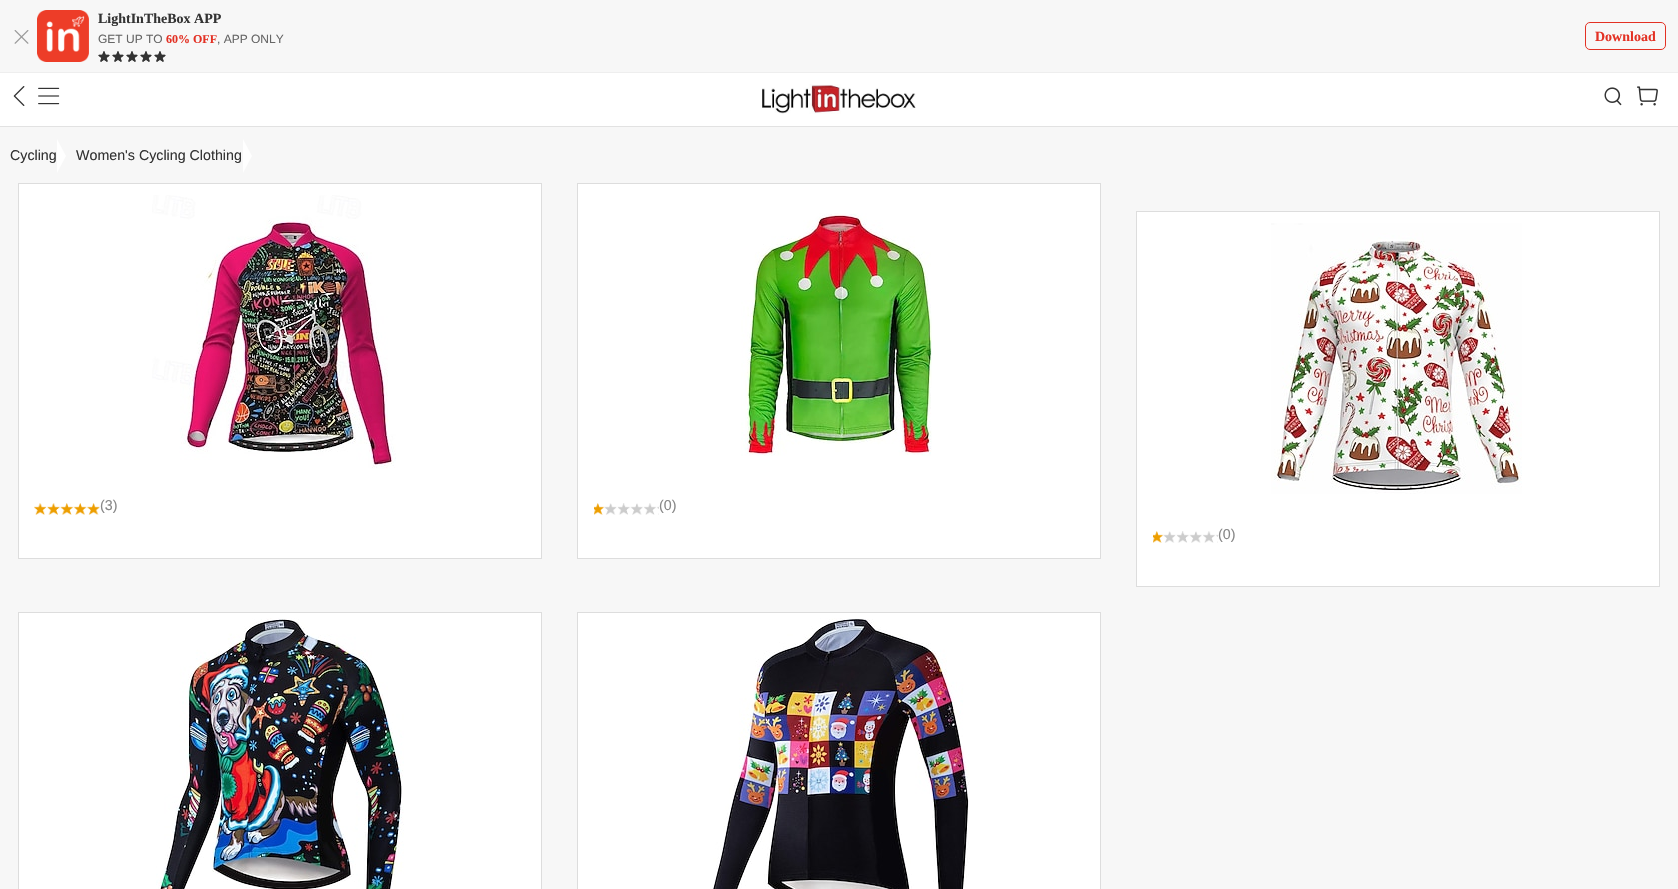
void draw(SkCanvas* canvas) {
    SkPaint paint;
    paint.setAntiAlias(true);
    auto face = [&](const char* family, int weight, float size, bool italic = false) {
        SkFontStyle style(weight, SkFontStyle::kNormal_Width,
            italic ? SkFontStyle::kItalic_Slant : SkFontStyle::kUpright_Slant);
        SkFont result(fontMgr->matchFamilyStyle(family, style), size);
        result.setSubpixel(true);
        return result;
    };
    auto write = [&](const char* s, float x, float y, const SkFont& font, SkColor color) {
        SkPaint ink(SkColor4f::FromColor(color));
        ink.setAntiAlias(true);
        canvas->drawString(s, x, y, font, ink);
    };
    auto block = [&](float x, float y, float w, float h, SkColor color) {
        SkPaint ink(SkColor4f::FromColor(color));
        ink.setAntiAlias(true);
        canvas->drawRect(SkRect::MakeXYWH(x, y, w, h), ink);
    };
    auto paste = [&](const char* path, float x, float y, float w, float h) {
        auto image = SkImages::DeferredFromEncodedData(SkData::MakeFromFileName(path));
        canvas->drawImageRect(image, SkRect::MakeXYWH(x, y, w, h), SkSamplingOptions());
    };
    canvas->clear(SkColorSetRGB(247, 247, 247));
    paste("pic1.png", 14, 30, 15, 14);
    paste("pic2.png", 37, 10, 52, 52);
    auto kFont1 = face("Liberation Serif", 700, 14);
    write("LightInTheBox APP", 98, 23, kFont1, SkColorSetRGB(51, 51, 51));
    auto kFont2 = face("Liberation Sans", 400, 12);
    write("GET UP TO", 98, 43, kFont2, SkColorSetRGB(102, 102, 102));
    auto kFont3 = face("Liberation Serif", 700, 12);
    write("60% OFF", 166, 43, kFont3, SkColorSetRGB(227, 49, 36));
    write(", APP ONLY", 217, 43, kFont2, SkColorSetRGB(102, 102, 102));
    paste("pic3.png", 98, 51, 12, 11);
    paste("pic4.png", 98, 51, 12, 11);
    paste("pic3.png", 112, 51, 12, 11);
    paste("pic4.png", 112, 51, 12, 11);
    paste("pic3.png", 126, 51, 12, 11);
    paste("pic4.png", 126, 51, 12, 11);
    paste("pic3.png", 140, 51, 12, 11);
    paste("pic4.png", 140, 51, 12, 11);
    paste("pic3.png", 154, 51, 12, 11);
    paste("pic4.png", 154, 51, 12, 11);
    paint.setStyle(SkPaint::kStroke_Style);
    paint.setStrokeWidth(1);
    paint.setColor(SkColorSetRGB(227, 49, 36));
    canvas->drawRoundRect(SkRect::MakeXYWH(1585.5f, 22.5f, 80, 27), 4.5f, 4.5f, paint);
    write("Download", 1595, 41, kFont1, SkColorSetRGB(227, 49, 36));
    block(0, 73, 1678, 53, SK_ColorWHITE);
    block(0, 72, 1678, 1, SkColorSetRGB(238, 238, 238));
    block(0, 126, 1678, 1, SkColorSetRGB(226, 226, 226));
    paste("pic5.png", 13, 86, 12, 20);
    paste("pic6.png", 38, 87, 22, 18);
    paste("pic7.png", 762, 84, 154, 30);
    paste("pic8.png", 1604, 87, 18, 19);
    paste("pic9.png", 1637, 86, 21, 20);
    auto kFont4 = face("Liberation Sans", 400, 14.25f);
    write("Cycling", 10, 160, kFont4, SkColorSetRGB(51, 51, 51));
    paint.setStyle(SkPaint::kFill_Style);
    paint.setColor(SK_ColorWHITE);
    canvas->drawPath(SkPathBuilder().moveTo(57, 173).lineTo(57, 139).lineTo(66, 156).close().detach(), paint);
    write("Women's Cycling Clothing", 76, 160, kFont4, SkColorSetRGB(51, 51, 51));
    canvas->drawPath(SkPathBuilder().moveTo(243, 173).lineTo(243, 139).lineTo(252, 156).close().detach(), paint);
    canvas->drawRect(SkRect::MakeXYWH(18.5f, 183.5f, 523, 375), paint);
    paint.setStyle(SkPaint::kStroke_Style);
    paint.setColor(SkColorSetRGB(221, 221, 221));
    canvas->drawRect(SkRect::MakeXYWH(18.5f, 183.5f, 523, 375), paint);
    paste("pic10.png", 152, 195, 244, 274);
    paste("pic11.png", 34, 503, 66, 12);
    write("(3)", 100, 510, kFont4, SkColorSetRGB(136, 136, 136));
    paint.setStyle(SkPaint::kFill_Style);
    paint.setColor(SK_ColorWHITE);
    canvas->drawRect(SkRect::MakeXYWH(577.5f, 183.5f, 523, 375), paint);
    paint.setStyle(SkPaint::kStroke_Style);
    paint.setColor(SkColorSetRGB(221, 221, 221));
    canvas->drawRect(SkRect::MakeXYWH(577.5f, 183.5f, 523, 375), paint);
    paste("pic12.png", 741, 213, 191, 243);
    paste("pic13.png", 594, 503, 65, 12);
    write("(0)", 659, 510, kFont4, SkColorSetRGB(136, 136, 136));
    paint.setStyle(SkPaint::kFill_Style);
    paint.setColor(SK_ColorWHITE);
    canvas->drawRect(SkRect::MakeXYWH(1136.5f, 211.5f, 523, 375), paint);
    paint.setStyle(SkPaint::kStroke_Style);
    paint.setColor(SkColorSetRGB(221, 221, 221));
    canvas->drawRect(SkRect::MakeXYWH(1136.5f, 211.5f, 523, 375), paint);
    paste("pic14.png", 1271, 223, 251, 271);
    paste("pic13.png", 1153, 531, 65, 12);
    write("(0)", 1218, 539, kFont4, SkColorSetRGB(136, 136, 136));
    paint.setStyle(SkPaint::kFill_Style);
    paint.setColor(SK_ColorWHITE);
    canvas->drawRect(SkRect::MakeXYWH(18.5f, 612.5f, 523, 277), paint);
    paint.setStyle(SkPaint::kStroke_Style);
    paint.setColor(SkColorSetRGB(221, 221, 221));
    canvas->drawRect(SkRect::MakeXYWH(18.5f, 612.5f, 523, 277), paint);
    paste("pic15.png", 156, 618, 248, 271);
    paint.setStyle(SkPaint::kFill_Style);
    paint.setColor(SK_ColorWHITE);
    canvas->drawRect(SkRect::MakeXYWH(577.5f, 612.5f, 523, 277), paint);
    paint.setStyle(SkPaint::kStroke_Style);
    paint.setColor(SkColorSetRGB(221, 221, 221));
    canvas->drawRect(SkRect::MakeXYWH(577.5f, 612.5f, 523, 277), paint);
    paste("pic16.png", 713, 618, 257, 271);
}
